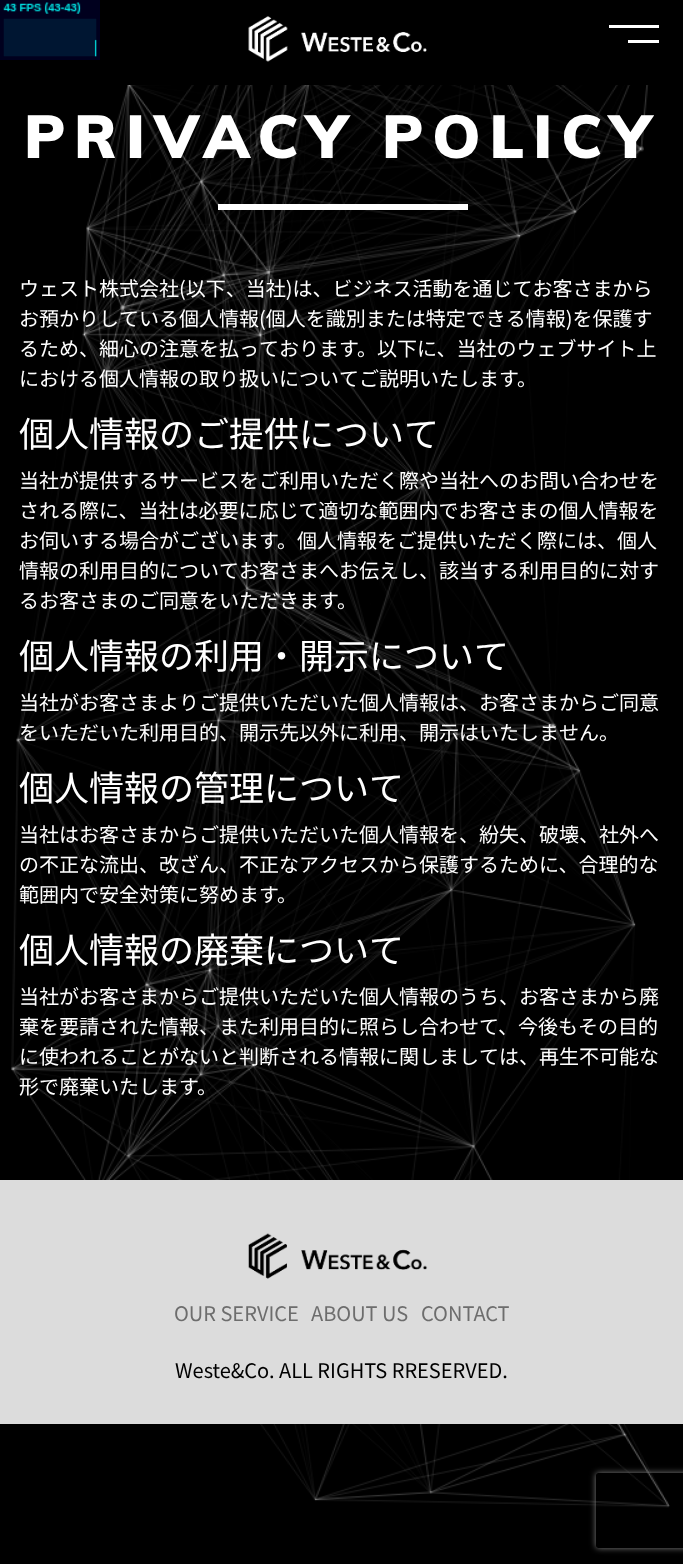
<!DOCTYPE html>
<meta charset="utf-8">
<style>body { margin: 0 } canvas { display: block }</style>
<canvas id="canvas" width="683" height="1564"></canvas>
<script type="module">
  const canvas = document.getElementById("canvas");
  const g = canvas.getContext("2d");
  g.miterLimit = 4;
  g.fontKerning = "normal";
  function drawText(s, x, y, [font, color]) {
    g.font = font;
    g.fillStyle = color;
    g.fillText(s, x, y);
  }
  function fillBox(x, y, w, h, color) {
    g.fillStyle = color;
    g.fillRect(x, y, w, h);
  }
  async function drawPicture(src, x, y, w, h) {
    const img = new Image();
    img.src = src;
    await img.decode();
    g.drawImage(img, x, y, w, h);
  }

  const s1 = ["900 60px Muli", "#FFFFFF"];
  const s2 = ["100 20px Noto Sans JP", "#FFFFFF"];
  const s3 = ["100 35px Noto Sans JP", "#FFFFFF"];
  const s4 = ["100 20px Noto Sans JP", "#6D6D6D"];
  const s5 = ["100 20px Noto Sans JP", "#000000"];

  fillBox(0, 0, 683, 1564, "#000000");
  await drawPicture("pic1.png", 0, 0, 100, 60);
  await drawPicture("pic2.png", 248, 16, 179, 46);
  fillBox(609, 25, 50, 3, "#FFFFFF");
  fillBox(628, 40, 31, 3, "#FFFFFF");
  await drawPicture("pic3.png", 11, 85, 659, 1423);
  g.letterSpacing = "9px";
  drawText("PRIVACY POLICY", 24, 158, s1);
  fillBox(218, 204, 250, 6, "#FFFFFF");
  g.letterSpacing = "0px";
  drawText("ウェスト株式会社(以下、当社)は、ビジネス活動を通じてお客さまから", 19, 296, s2);
  drawText("お預かりしている個⼈情報(個⼈を識別または特定できる情報)を保護す", 19, 326, s2);
  drawText("るため、細⼼の注意を払っております。以下に、当社のウェブサイト上", 19, 356, s2);
  drawText("における個⼈情報の取り扱いについてご説明いたします。", 19, 386, s2);
  drawText("個⼈情報のご提供について", 19, 447, s3);
  drawText("当社が提供するサービスをご利⽤いただく際や当社へのお問い合わせを", 19, 488, s2);
  drawText("される際に、当社は必要に応じて適切な範囲内でお客さまの個⼈情報を", 19, 518, s2);
  drawText("お伺いする場合がございます。個⼈情報をご提供いただく際には、個⼈", 19, 548, s2);
  drawText("情報の利⽤⽬的についてお客さまへお伝えし、該当する利⽤⽬的に対す", 19, 578, s2);
  drawText("るお客さまのご同意をいただきます。", 19, 608, s2);
  drawText("個⼈情報の利⽤・開⽰について", 19, 669, s3);
  drawText("当社がお客さまよりご提供いただいた個⼈情報は、お客さまからご同意", 19, 710, s2);
  drawText("をいただいた利⽤⽬的、開⽰先以外に利⽤、開⽰はいたしません。", 19, 740, s2);
  drawText("個⼈情報の管理について", 19, 801, s3);
  drawText("当社はお客さまからご提供いただいた個⼈情報を、紛失、破壊、社外へ", 19, 842, s2);
  drawText("の不正な流出、改ざん、不正なアクセスから保護するために、合理的な", 19, 872, s2);
  drawText("範囲内で安全対策に努めます。", 19, 902, s2);
  drawText("個⼈情報の廃棄について", 19, 963, s3);
  drawText("当社がお客さまからご提供いただいた個⼈情報のうち、お客さまから廃", 19, 1004, s2);
  drawText("棄を要請された情報、また利⽤⽬的に照らし合わせて、今後もその⽬的", 19, 1034, s2);
  drawText("に使われることがないと判断される情報に関しましては、再⽣不可能な", 19, 1064, s2);
  drawText("形で廃棄いたします。", 19, 1094, s2);
  fillBox(0, 1180, 683, 244, "#DCDCDC");
  await drawPicture("pic4.png", 248, 1233, 180, 46);
  drawText("OUR SERVICE", 174, 1321, s4);
  drawText("ABOUT US", 311, 1321, s4);
  drawText("CONTACT", 421, 1321, s4);
  drawText("Weste&Co. ALL RIGHTS RRESERVED.", 175, 1378, s5);
  g.save();
  g.beginPath();
  g.moveTo(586, 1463);
  g.lineTo(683, 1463);
  g.lineTo(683, 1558);
  g.lineTo(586, 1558);
  g.closePath();
  g.moveTo(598.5, 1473);
  g.lineTo(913.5, 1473);
  g.bezierCurveTo(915, 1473, 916, 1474, 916, 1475.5);
  g.lineTo(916, 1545.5);
  g.bezierCurveTo(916, 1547, 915, 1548, 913.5, 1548);
  g.lineTo(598.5, 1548);
  g.bezierCurveTo(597, 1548, 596, 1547, 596, 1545.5);
  g.lineTo(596, 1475.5);
  g.bezierCurveTo(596, 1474, 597, 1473, 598.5, 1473);
  g.closePath();
  g.clip("evenodd");
  g.fillStyle = "#808080";
  g.filter = "blur(3px)";
  g.beginPath();
  g.roundRect(596, 1473, 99, 75, 2.5);
  g.fill();
  g.filter = "none";
  g.restore();
</script>
